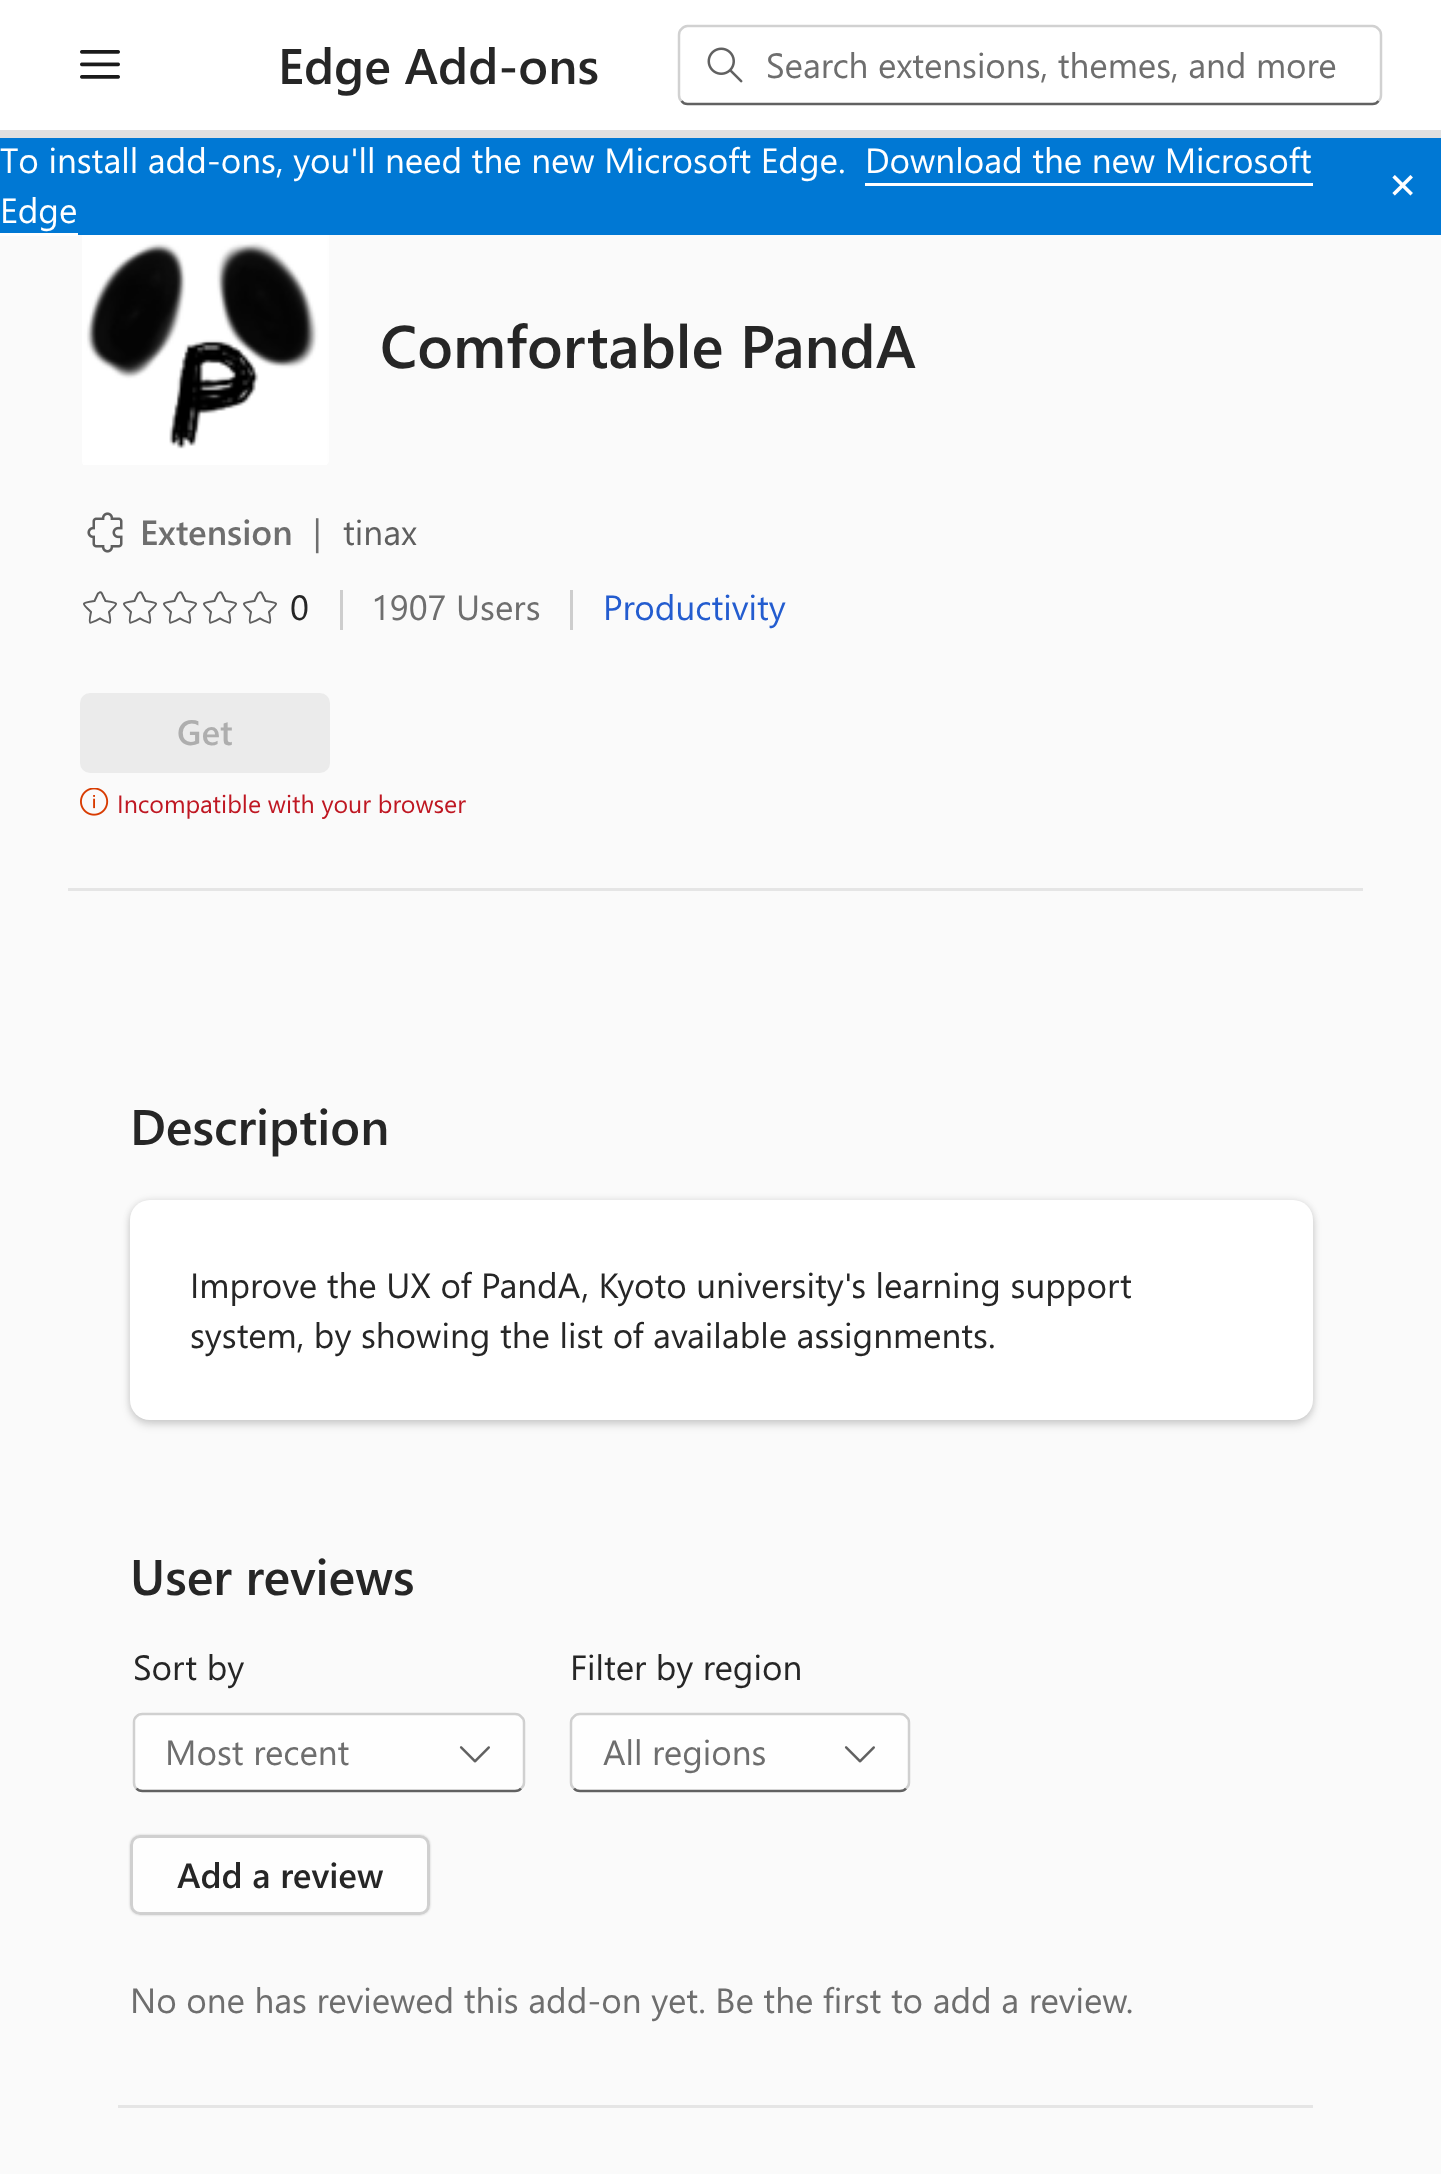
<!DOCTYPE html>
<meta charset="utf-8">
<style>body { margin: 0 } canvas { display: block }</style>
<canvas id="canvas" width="1441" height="2174"></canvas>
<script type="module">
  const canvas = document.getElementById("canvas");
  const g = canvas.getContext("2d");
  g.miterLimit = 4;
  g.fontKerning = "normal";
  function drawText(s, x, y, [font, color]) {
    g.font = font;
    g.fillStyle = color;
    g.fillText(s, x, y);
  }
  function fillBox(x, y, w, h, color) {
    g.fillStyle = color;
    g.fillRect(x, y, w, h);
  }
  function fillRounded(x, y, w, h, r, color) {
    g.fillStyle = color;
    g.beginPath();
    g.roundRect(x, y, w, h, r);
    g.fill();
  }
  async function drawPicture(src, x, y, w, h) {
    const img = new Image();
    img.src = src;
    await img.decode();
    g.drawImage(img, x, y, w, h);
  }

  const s1 = ["600 50px Segoe UI", "#262626"];
  const s2 = ["35px Segoe UI", "#6E6E6E"];
  const s3 = ["35px 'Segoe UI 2'", "#FFFFFF"];
  const s4 = ["35px DejaVu Sans", "#FFFFFF"];
  const s5 = ["600 60px Segoe UI", "#262626"];
  const s6 = ["600 35px Segoe UI", "#6E6E6E"];
  const s7 = ["35px Segoe UI", "#5F5F5F"];
  const s8 = ["35px Segoe UI", "#262626"];
  const s9 = ["35px Segoe UI", "#235CCF"];
  const s10 = ["600 35px Segoe UI", "#AEAEAE"];
  const s11 = ["25px Segoe UI", "#BF1722"];
  const s12 = ["600 35px Segoe UI", "#262626"];

  fillBox(0, 0, 1441, 2174, "#FAFAFA");
  fillBox(0, 0, 1441, 130, "#FFFFFF");
  fillBox(0, 130, 1441, 8, "#E0E0E0");
  await drawPicture("pic1.png", 80, 50, 40, 29);
  drawText("Edge Add-ons", 278, 84, s1);
  g.beginPath();
  g.moveTo(1378.5, 101);
  g.bezierCurveTo(1377, 103, 1375, 104, 1372.5, 104);
  g.lineTo(687.5, 104);
  g.bezierCurveTo(685, 104, 683, 103, 681.5, 101);
  g.strokeStyle = "#616161";
  g.lineWidth = 2.5;
  g.stroke();
  g.beginPath();
  g.moveTo(681.5, 101);
  g.bezierCurveTo(679.5, 99.5, 679, 97.5, 679, 95);
  g.lineTo(679, 35);
  g.bezierCurveTo(679, 32.5, 679.5, 30.5, 681.5, 29);
  g.bezierCurveTo(683, 27, 685, 26, 687.5, 26);
  g.lineTo(1372.5, 26);
  g.bezierCurveTo(1375, 26, 1377, 27, 1378.5, 29);
  g.bezierCurveTo(1380.5, 30.5, 1381, 32.5, 1381, 35);
  g.lineTo(1381, 95);
  g.bezierCurveTo(1381, 97.5, 1380.5, 99.5, 1378.5, 101);
  g.strokeStyle = "rgba(0, 0, 0, 0.18)";
  g.stroke();
  await drawPicture("pic2.png", 707, 47, 36, 36);
  drawText("Search extensions, themes, and more", 766, 78, s2);
  fillBox(0, 138, 1441, 97, "#0078D4");
  drawText("To install add-ons, you'll need the new Microsoft Edge.", 0, 173, s3);
  drawText("Download the new Microsoft", 865, 173, s3);
  fillBox(865, 183, 448, 3, "#FFFFFF");
  drawText("Edge", 0, 223, s3);
  fillBox(0, 233, 78, 3, "#FFFFFF");
  drawText("✕", 1388, 198, s4);
  await drawPicture("pic3.png", 82, 235, 247, 230);
  drawText("Comfortable PandA", 380, 368, s5);
  await drawPicture("pic4.png", 87, 512, 36, 41);
  drawText("Extension", 140, 545, s6);
  drawText("|", 313, 545, s2);
  drawText("tinax", 343, 545, s7);
  g.beginPath();
  g.moveTo(98, 593.5);
  g.lineTo(99.5, 592.5);
  g.bezierCurveTo(101.5, 591.5, 102.5, 594.5, 103, 596);
  g.lineTo(105.5, 601);
  g.bezierCurveTo(119, 603, 119, 602.5, 109, 612);
  g.bezierCurveTo(111.5, 625, 112, 625, 100, 618.5);
  g.bezierCurveTo(88, 625, 88.5, 625, 91, 612);
  g.bezierCurveTo(81, 602.5, 81, 603, 94.5, 601);
  g.closePath();
  g.strokeStyle = "#5F5F5F";
  g.lineWidth = 2;
  g.stroke();
  g.beginPath();
  g.moveTo(138, 593.5);
  g.lineTo(139.5, 592.5);
  g.bezierCurveTo(141.5, 591.5, 142.5, 594.5, 143, 596);
  g.lineTo(145.5, 601);
  g.bezierCurveTo(159, 603, 159, 602.5, 149, 612);
  g.bezierCurveTo(151.5, 625, 152, 625, 140, 618.5);
  g.bezierCurveTo(128, 625, 128.5, 625, 131, 612);
  g.bezierCurveTo(121, 602.5, 121, 603, 134.5, 601);
  g.closePath();
  g.stroke();
  g.beginPath();
  g.moveTo(178, 593.5);
  g.lineTo(179.5, 592.5);
  g.bezierCurveTo(181.5, 591.5, 182.5, 594.5, 183, 596);
  g.lineTo(185.5, 601);
  g.bezierCurveTo(199, 603, 199, 602.5, 189, 612);
  g.bezierCurveTo(191.5, 625, 192, 625, 180, 618.5);
  g.bezierCurveTo(168, 625, 168.5, 625, 171, 612);
  g.bezierCurveTo(161, 602.5, 161, 603, 174.5, 601);
  g.closePath();
  g.stroke();
  g.beginPath();
  g.moveTo(218, 593.5);
  g.lineTo(219.5, 592.5);
  g.bezierCurveTo(221.5, 591.5, 222.5, 594.5, 223, 596);
  g.lineTo(225.5, 601);
  g.bezierCurveTo(239, 603, 239, 602.5, 229, 612);
  g.bezierCurveTo(231.5, 625, 232, 625, 220, 618.5);
  g.bezierCurveTo(208, 625, 208.5, 625, 211, 612);
  g.bezierCurveTo(201, 602.5, 201, 603, 214.5, 601);
  g.closePath();
  g.stroke();
  g.beginPath();
  g.moveTo(258, 593.5);
  g.lineTo(259.5, 592.5);
  g.bezierCurveTo(261.5, 591.5, 262.5, 594.5, 263, 596);
  g.lineTo(265.5, 601);
  g.bezierCurveTo(279, 603, 279, 602.5, 269, 612);
  g.bezierCurveTo(271.5, 625, 272, 625, 260, 618.5);
  g.bezierCurveTo(248, 625, 248.5, 625, 251, 612);
  g.bezierCurveTo(241, 602.5, 241, 603, 254.5, 601);
  g.closePath();
  g.stroke();
  drawText("0", 290, 620, s8);
  fillBox(340, 590, 3, 40, "#CDCDCD");
  drawText("1907 Users", 371, 620, s2);
  fillBox(570, 590, 3, 40, "#CDCDCD");
  drawText("Productivity", 603, 620, s9);
  fillRounded(80, 693, 250, 80, 10, "#EBEBEB");
  drawText("Get", 177, 745, s10);
  await drawPicture("pic5.png", 80, 788, 29, 28);
  drawText("Incompatible with your browser", 117, 813, s11);
  fillBox(68, 888, 1295, 3, "#E5E5E5");
  drawText("Description", 130, 1145, s1);
  g.fillStyle = "rgba(0, 0, 0, 0.11)";
  g.filter = "blur(3.5px)";
  g.beginPath();
  g.roundRect(130, 1200, 1183, 220, 20);
  g.fill();
  g.filter = "none";
  g.fillStyle = "rgba(0, 0, 0, 0.14)";
  g.filter = "blur(4.5px)";
  g.beginPath();
  g.roundRect(130, 1205, 1183, 220, 20);
  g.fill();
  g.filter = "none";
  fillRounded(130, 1200, 1183, 220, 20, "#FFFFFF");
  drawText("Improve the UX of PandA, Kyoto university's learning support", 190, 1298, s8);
  drawText("system, by showing the list of available assignments.", 190, 1348, s8);
  drawText("User reviews", 130, 1595, s1);
  drawText("Sort by", 133, 1680, s8);
  fillRounded(133, 1713, 392, 80, 10, "#FEFEFE");
  g.beginPath();
  g.moveTo(521, 1788.5);
  g.bezierCurveTo(519.5, 1790.5, 517.5, 1791, 515, 1791);
  g.lineTo(142.5, 1791);
  g.bezierCurveTo(140, 1791, 138, 1790.5, 136.5, 1788.5);
  g.strokeStyle = "#616161";
  g.lineWidth = 2.5;
  g.stroke();
  g.beginPath();
  g.moveTo(136.5, 1788.5);
  g.bezierCurveTo(134.5, 1787, 134, 1785, 134, 1782.5);
  g.lineTo(134, 1722.5);
  g.bezierCurveTo(134, 1720, 134.5, 1718, 136.5, 1716.5);
  g.bezierCurveTo(138, 1714.5, 140, 1714, 142.5, 1714);
  g.lineTo(515, 1714);
  g.bezierCurveTo(517.5, 1714, 519.5, 1714.5, 521, 1716.5);
  g.bezierCurveTo(523, 1718, 524, 1720, 524, 1722.5);
  g.lineTo(524, 1782.5);
  g.bezierCurveTo(524, 1785, 523, 1787, 521, 1788.5);
  g.strokeStyle = "rgba(0, 0, 0, 0.18)";
  g.stroke();
  drawText("Most recent", 165, 1765, s2);
  await drawPicture("pic6.png", 459, 1746, 31, 17);
  drawText("Filter by region", 570, 1680, s8);
  fillRounded(570, 1713, 340, 80, 10, "#FEFEFE");
  g.beginPath();
  g.moveTo(906, 1788.5);
  g.bezierCurveTo(904.5, 1790.5, 902.5, 1791, 900, 1791);
  g.lineTo(580, 1791);
  g.bezierCurveTo(577.5, 1791, 575.5, 1790.5, 574, 1788.5);
  g.strokeStyle = "#616161";
  g.stroke();
  g.beginPath();
  g.moveTo(574, 1788.5);
  g.bezierCurveTo(572, 1787, 571, 1785, 571, 1782.5);
  g.lineTo(571, 1722.5);
  g.bezierCurveTo(571, 1720, 572, 1718, 574, 1716.5);
  g.bezierCurveTo(575.5, 1714.5, 577.5, 1714, 580, 1714);
  g.lineTo(900, 1714);
  g.bezierCurveTo(902.5, 1714, 904.5, 1714.5, 906, 1716.5);
  g.bezierCurveTo(908, 1718, 909, 1720, 909, 1722.5);
  g.lineTo(909, 1782.5);
  g.bezierCurveTo(909, 1785, 908, 1787, 906, 1788.5);
  g.strokeStyle = "rgba(0, 0, 0, 0.18)";
  g.stroke();
  drawText("All regions", 603, 1765, s2);
  await drawPicture("pic6.png", 844, 1746, 31, 17);
  g.save();
  g.beginPath();
  g.moveTo(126, 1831);
  g.lineTo(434, 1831);
  g.lineTo(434, 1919);
  g.lineTo(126, 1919);
  g.closePath();
  g.moveTo(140, 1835);
  g.lineTo(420, 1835);
  g.bezierCurveTo(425.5, 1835, 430, 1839.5, 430, 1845);
  g.lineTo(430, 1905);
  g.bezierCurveTo(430, 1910.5, 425.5, 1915, 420, 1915);
  g.lineTo(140, 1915);
  g.bezierCurveTo(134.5, 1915, 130, 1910.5, 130, 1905);
  g.lineTo(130, 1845);
  g.bezierCurveTo(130, 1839.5, 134.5, 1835, 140, 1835);
  g.closePath();
  g.clip("evenodd");
  g.fillStyle = "rgba(0, 0, 0, 0.18)";
  g.filter = "blur(1px)";
  g.beginPath();
  g.roundRect(130, 1835, 300, 80, 10);
  g.fill();
  g.filter = "none";
  g.restore();
  fillRounded(130, 1835, 300, 80, 10, "rgba(255, 255, 255, 0.7)");
  g.beginPath();
  g.roundRect(131.5, 1836.5, 297, 77, 8.5);
  g.lineWidth = 3;
  g.stroke();
  drawText("Add a review", 177, 1888, s12);
  drawText("No one has reviewed this add-on yet. Be the first to add a review.", 130, 2013, s2);
  fillBox(118, 2105, 1195, 3, "#E5E5E5");
</script>
